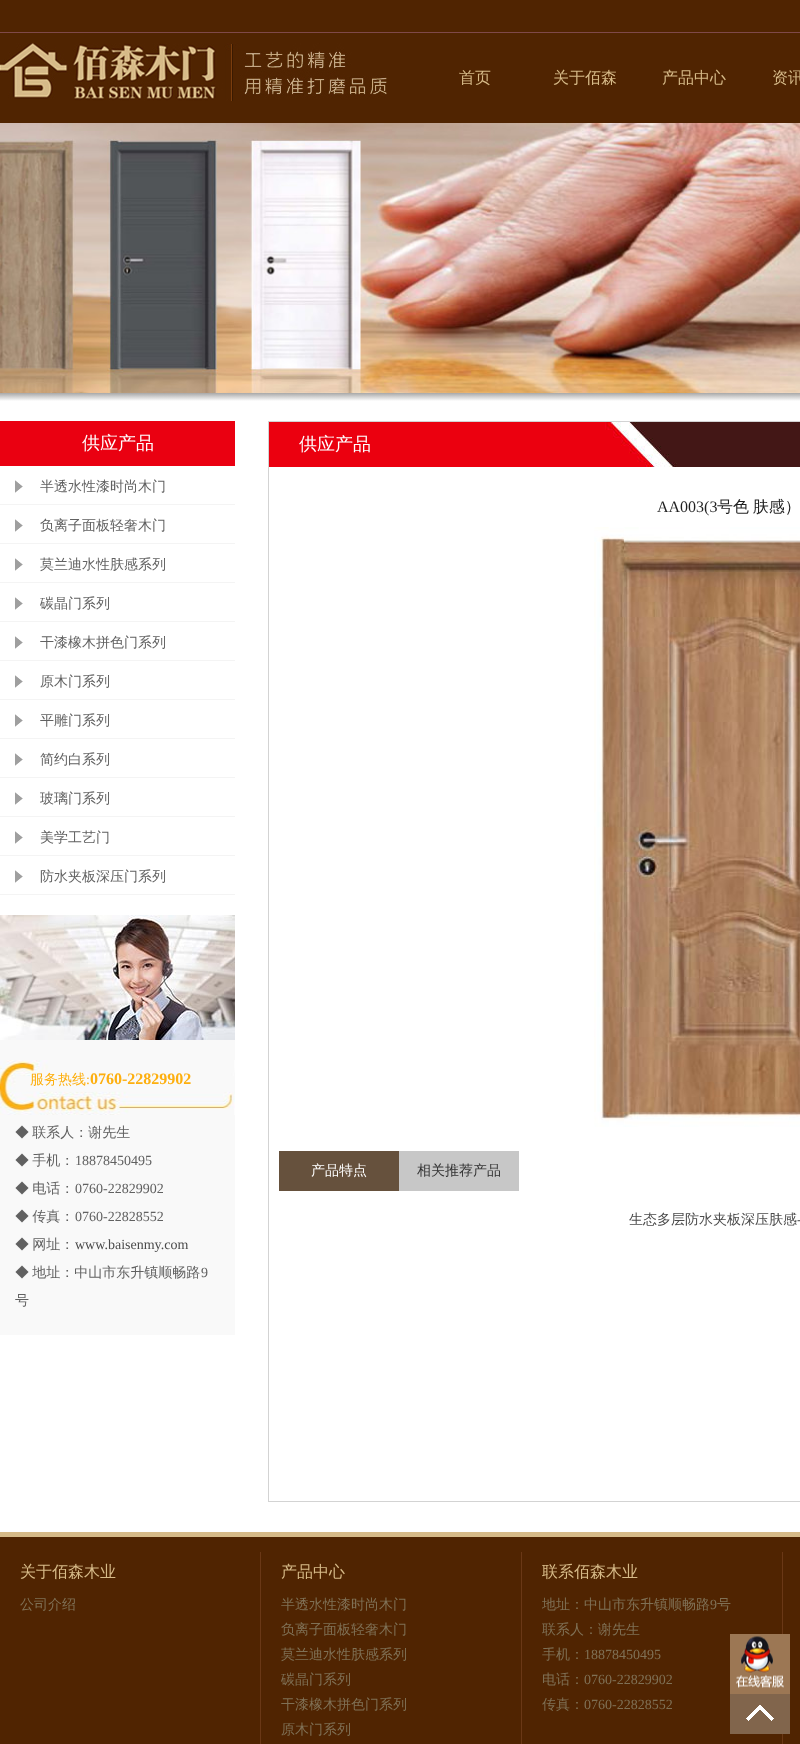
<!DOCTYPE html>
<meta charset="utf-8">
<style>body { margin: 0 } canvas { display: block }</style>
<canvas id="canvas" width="800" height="1744"></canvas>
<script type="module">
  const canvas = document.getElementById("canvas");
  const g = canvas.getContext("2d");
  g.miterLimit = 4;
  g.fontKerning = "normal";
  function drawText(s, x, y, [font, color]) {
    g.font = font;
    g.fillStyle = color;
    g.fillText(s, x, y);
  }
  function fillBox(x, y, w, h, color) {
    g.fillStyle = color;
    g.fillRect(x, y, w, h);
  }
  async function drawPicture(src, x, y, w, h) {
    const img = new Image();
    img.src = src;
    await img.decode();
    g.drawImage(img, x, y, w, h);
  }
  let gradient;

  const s1 = ["500 16px WenQuanYi Zen Hei", "#D6BA88"];
  const s2 = ["500 18px WenQuanYi Zen Hei", "#FFFFFF"];
  const s3 = ["500 14px WenQuanYi Zen Hei", "#616161"];
  const s4 = ["500 14px WenQuanYi Zen Hei", "#FDAF0F"];
  const s5 = ["14px Liberation Serif", "#FDAF0F"];
  const s6 = ["bold 16px Liberation Serif", "#FDAF0F"];
  const s7 = ["14px Liberation Serif", "#616161"];
  const s8 = ["14px Liberation Serif", "#4A4A4A"];
  const s9 = ["16px Liberation Serif", "#1F1F1F"];
  const s10 = ["500 16px WenQuanYi Zen Hei", "#1F1F1F"];
  const s11 = ["500 14px WenQuanYi Zen Hei", "#FFFFFF"];
  const s12 = ["500 14px WenQuanYi Zen Hei", "#333333"];
  const s13 = ["500 14px WenQuanYi Zen Hei", "#4A4A4A"];
  const s14 = ["500 14px WenQuanYi Zen Hei", "#7F7055"];
  const s15 = ["14px Liberation Serif", "#7F7055"];

  fillBox(0, 0, 800, 1744, "#FFFFFF");
  fillBox(0, 0, 800, 32, "#502401");
  fillBox(0, 32, 800, 1, "#7F4949");
  fillBox(0, 33, 800, 90, "#502401");
  await drawPicture("pic1.png", 0, 43, 387, 58);
  drawText("首页", 459, 83, s1);
  drawText("关于佰森", 553, 83, s1);
  drawText("产品中心", 662, 83, s1);
  drawText("资讯", 772, 83, s1);
  await drawPicture("pic2.png", 0, 123, 800, 270);
  gradient = g.createLinearGradient(400, 393, 400, 401);
  gradient.addColorStop(0, "#A8A8A8");
  gradient.addColorStop(1, "#FFFFFF");
  g.fillStyle = gradient;
  g.fillRect(0, 393, 800, 8);
  fillBox(0, 421, 235, 45, "#EA0011");
  drawText("供应产品", 82, 449, s2);
  await drawPicture("pic3.png", 15, 480, 8, 13);
  fillBox(0, 504, 235, 1, "#F4F4F4");
  drawText("半透水性漆时尚木门", 40, 491, s3);
  await drawPicture("pic3.png", 15, 519, 8, 13);
  fillBox(0, 543, 235, 1, "#F4F4F4");
  drawText("负离子面板轻奢木门", 40, 530, s3);
  await drawPicture("pic3.png", 15, 558, 8, 13);
  fillBox(0, 582, 235, 1, "#F4F4F4");
  drawText("莫兰迪水性肤感系列", 40, 569, s3);
  await drawPicture("pic3.png", 15, 597, 8, 13);
  fillBox(0, 621, 235, 1, "#F4F4F4");
  drawText("碳晶门系列", 40, 608, s3);
  await drawPicture("pic3.png", 15, 636, 8, 13);
  fillBox(0, 660, 235, 1, "#F4F4F4");
  drawText("干漆橡木拼色门系列", 40, 647, s3);
  await drawPicture("pic3.png", 15, 675, 8, 13);
  fillBox(0, 699, 235, 1, "#F4F4F4");
  drawText("原木门系列", 40, 686, s3);
  await drawPicture("pic3.png", 15, 714, 8, 13);
  fillBox(0, 738, 235, 1, "#F4F4F4");
  drawText("平雕门系列", 40, 725, s3);
  await drawPicture("pic3.png", 15, 753, 8, 13);
  fillBox(0, 777, 235, 1, "#F4F4F4");
  drawText("简约白系列", 40, 764, s3);
  await drawPicture("pic3.png", 15, 792, 8, 13);
  fillBox(0, 816, 235, 1, "#F4F4F4");
  drawText("玻璃门系列", 40, 803, s3);
  await drawPicture("pic3.png", 15, 831, 8, 13);
  fillBox(0, 855, 235, 1, "#F4F4F4");
  drawText("美学工艺门", 40, 842, s3);
  await drawPicture("pic3.png", 15, 870, 8, 13);
  fillBox(0, 894, 235, 1, "#F4F4F4");
  drawText("防水夹板深压门系列", 40, 881, s3);
  await drawPicture("pic4.png", 0, 915, 235, 125);
  fillBox(0, 1040, 235, 295, "#F9F9F9");
  await drawPicture("pic5.png", 0, 1060, 235, 55);
  drawText("服务热线", 30, 1084, s4);
  drawText(":", 86, 1084, s5);
  drawText("0760-22829902", 90, 1084, s6);
  g.wordSpacing = "-1px";
  drawText("◆ 联系人：谢先生", 15, 1137, s3);
  drawText("◆ 手机：", 15, 1165, s3);
  g.wordSpacing = "0px";
  drawText("18878450495", 75, 1165, s7);
  g.wordSpacing = "-1px";
  drawText("◆ 电话：", 15, 1193, s3);
  g.wordSpacing = "0px";
  drawText("0760-22829902", 75, 1193, s7);
  g.wordSpacing = "-1px";
  drawText("◆ 传真：", 15, 1221, s3);
  g.wordSpacing = "0px";
  drawText("0760-22828552", 75, 1221, s7);
  g.wordSpacing = "-1px";
  drawText("◆ 网址：", 15, 1249, s3);
  g.wordSpacing = "0px";
  drawText("www.baisenmy.com", 75, 1249, s8);
  g.wordSpacing = "-1px";
  drawText("◆ 地址：中山市东升镇顺畅路", 15, 1277, s3);
  g.wordSpacing = "0px";
  drawText("9", 201, 1277, s7);
  drawText("号", 15, 1305, s3);
  g.strokeStyle = "#D3D3D3";
  g.strokeRect(268.5, 421.5, 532, 1080);
  await drawPicture("pic6.png", 269, 422, 531, 45);
  drawText("供应产品", 299, 450, s2);
  drawText("AA003(3", 657, 512, s9);
  g.wordSpacing = "-1px";
  drawText("号色 肤感）", 717, 512, s10);
  await drawPicture("pic7.png", 594, 527, 206, 600);
  fillBox(279, 1151, 120, 40, "#66513D");
  g.wordSpacing = "0px";
  drawText("产品特点", 311, 1175, s11);
  fillBox(399, 1151, 120, 40, "#C7C7C7");
  drawText("相关推荐产品", 417, 1175, s12);
  drawText("生态多层防水夹板深压肤感", 629, 1224, s13);
  drawText("-", 797, 1224, s8);
  fillBox(0, 1537, 800, 207, "#502401");
  fillBox(0, 1532, 800, 5, "#D6BA88");
  fillBox(260, 1552, 1, 192, "#6A3816");
  drawText("关于佰森木业", 20, 1577, s1);
  drawText("公司介绍", 20, 1609, s14);
  fillBox(521, 1552, 1, 192, "#6A3816");
  drawText("产品中心", 281, 1577, s1);
  drawText("半透水性漆时尚木门", 281, 1609, s14);
  drawText("负离子面板轻奢木门", 281, 1634, s14);
  drawText("莫兰迪水性肤感系列", 281, 1659, s14);
  drawText("碳晶门系列", 281, 1684, s14);
  drawText("干漆橡木拼色门系列", 281, 1709, s14);
  drawText("原木门系列", 281, 1734, s14);
  fillBox(782, 1552, 1, 192, "#6A3816");
  drawText("联系佰森木业", 542, 1577, s1);
  drawText("地址：中山市东升镇顺畅路", 542, 1609, s14);
  drawText("9", 710, 1609, s15);
  drawText("号", 717, 1609, s14);
  drawText("联系人：谢先生", 542, 1634, s14);
  drawText("手机：", 542, 1659, s14);
  drawText("18878450495", 584, 1659, s15);
  drawText("电话：", 542, 1684, s14);
  drawText("0760-22829902", 584, 1684, s15);
  drawText("传真：", 542, 1709, s14);
  drawText("0760-22828552", 584, 1709, s15);
  fillBox(730, 1634, 60, 60, "#9C7754");
  await drawPicture("pic8.png", 736, 1636, 48, 52);
  fillBox(730, 1694, 60, 40, "#81654C");
  await drawPicture("pic9.png", 746, 1705, 28, 16);
</script>
